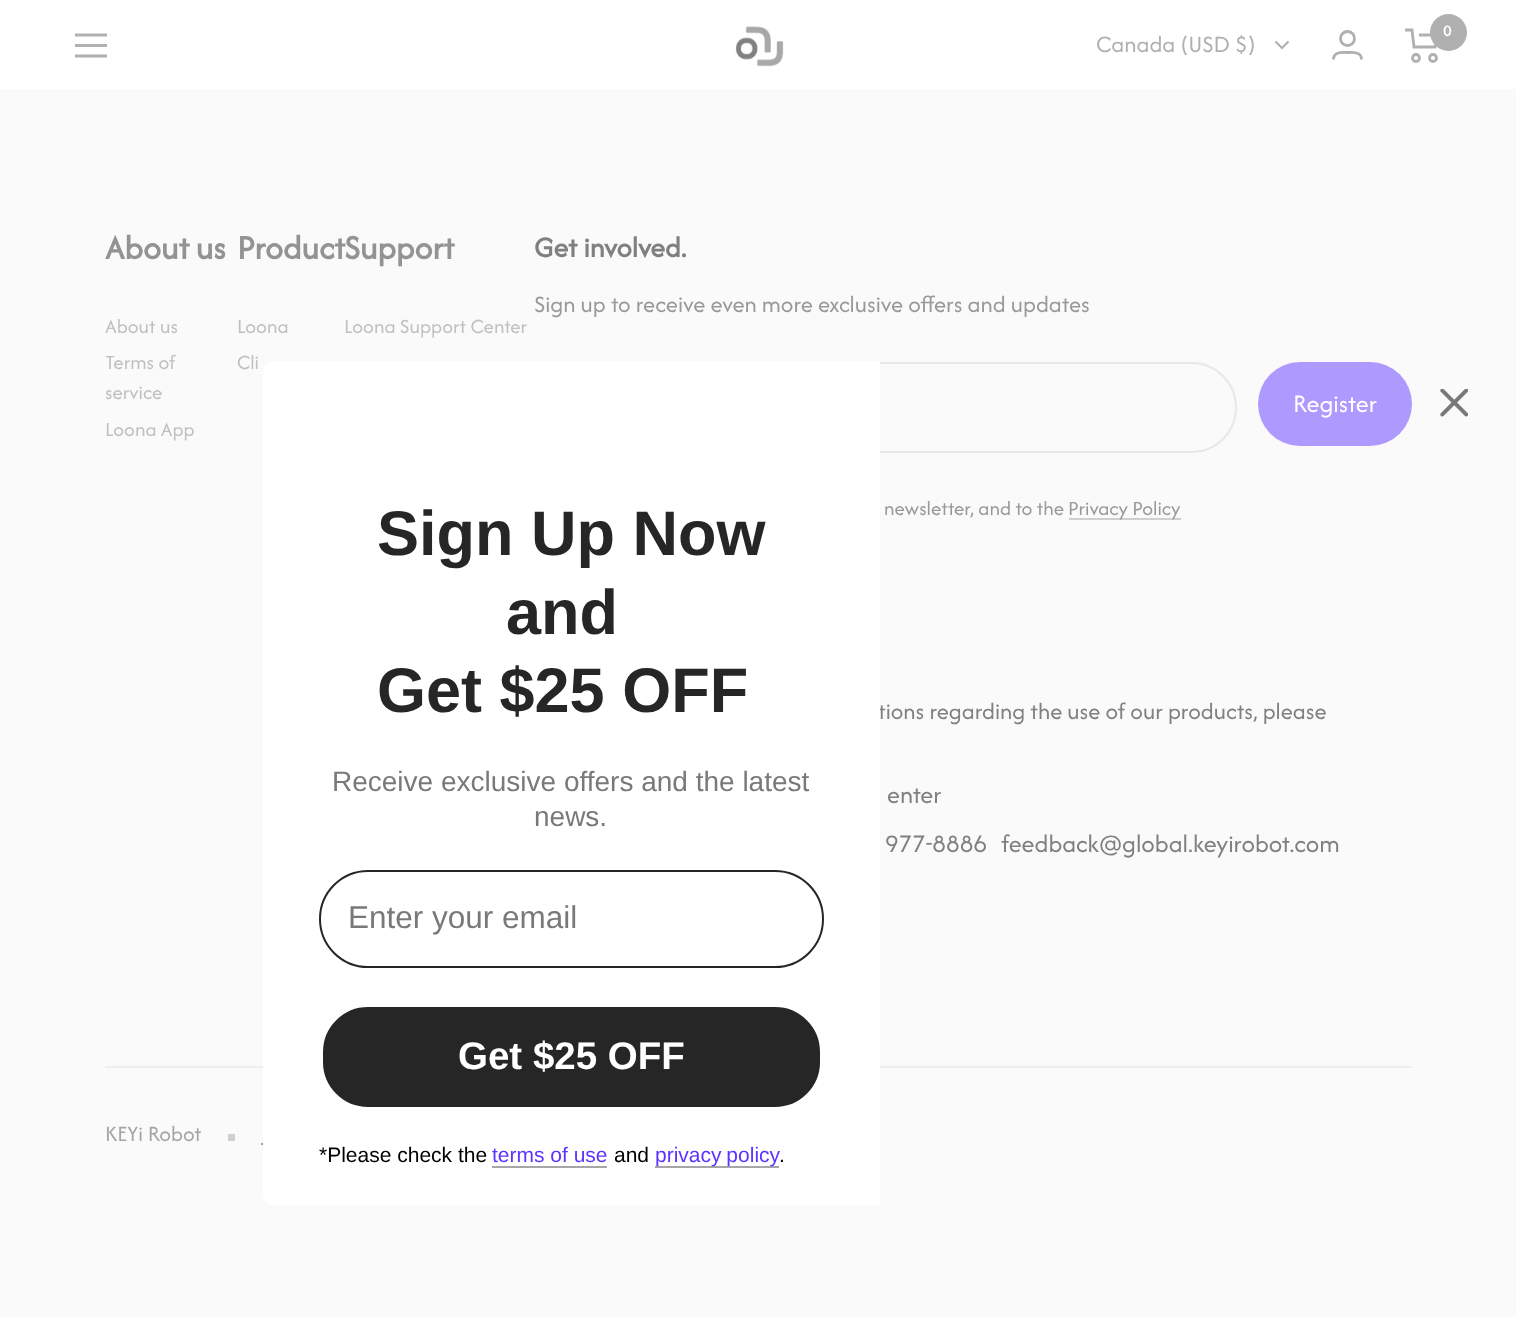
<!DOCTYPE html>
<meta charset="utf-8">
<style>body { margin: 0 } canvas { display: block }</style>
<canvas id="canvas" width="1516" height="1317"></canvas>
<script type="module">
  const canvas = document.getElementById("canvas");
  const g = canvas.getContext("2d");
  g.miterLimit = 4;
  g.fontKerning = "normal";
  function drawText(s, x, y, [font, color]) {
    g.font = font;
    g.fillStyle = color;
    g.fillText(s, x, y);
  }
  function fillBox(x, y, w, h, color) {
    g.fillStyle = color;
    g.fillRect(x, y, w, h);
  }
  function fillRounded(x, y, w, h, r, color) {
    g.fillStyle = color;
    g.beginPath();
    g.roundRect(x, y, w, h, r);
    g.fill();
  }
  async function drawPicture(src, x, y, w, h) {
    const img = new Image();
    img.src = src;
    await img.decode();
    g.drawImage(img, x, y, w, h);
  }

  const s1 = ["bold 16px Afacad", "#FFFFFF"];
  const s2 = ["24.5px Afacad", "#B0B0B0"];
  const s3 = ["bold 35px Afacad", "#939393"];
  const s4 = ["21px Afacad", "#C0C0C0"];
  const s5 = ["bold 29.75px Afacad", "#808080"];
  const s6 = ["24.5px Afacad", "#999999"];
  const s7 = ["26.25px Afacad", "#FFFFFF"];
  const s8 = ["21px Afacad", "#999999"];
  const s9 = ["24.5px Afacad", "#808080"];
  const s10 = ["26.25px Afacad", "#808080"];
  const s11 = ["22.75px Afacad", "#A5A5A5"];
  const s12 = ["bold 63px Liberation Sans", "#262626"];
  const s13 = ["28px Liberation Sans", "#797979"];
  const s14 = ["31.5px Liberation Sans", "#797979"];
  const s15 = ["bold 38.5px Liberation Sans", "#FFFFFF"];
  const s16 = ["21px Liberation Sans", "#000000"];
  const s17 = ["21px Liberation Sans", "#5D34FF"];

  fillBox(0, 0, 1516, 1317, "#FAFAFA");
  fillBox(0, 0, 1516, 89, "#FFFFFF");
  g.beginPath();
  g.moveTo(75, 35);
  g.lineTo(107, 35);
  g.moveTo(75, 56);
  g.lineTo(107, 56);
  g.closePath();
  g.moveTo(75, 45.5);
  g.lineTo(107, 45.5);
  g.closePath();
  g.strokeStyle = "#B0B0B0";
  g.lineWidth = 2.8;
  g.stroke();
  await drawPicture("pic1.png", 735, 26, 49, 41);
  g.beginPath();
  g.arc(1347.5, 38.5, 7, 0, Math.PI * 2);
  g.stroke();
  g.beginPath();
  g.moveTo(1333.5, 59.5);
  g.bezierCurveTo(1333.5, 51.5, 1342, 52.5, 1347.5, 52.5);
  g.bezierCurveTo(1353, 52.5, 1361.5, 51.5, 1361.5, 59.5);
  g.stroke();
  g.beginPath();
  g.moveTo(1405, 30);
  g.lineTo(1412, 30);
  g.lineTo(1414, 47);
  g.lineTo(1435, 47);
  g.lineTo(1438.5, 35);
  g.lineTo(1419, 35);
  g.stroke();
  g.beginPath();
  g.arc(1416, 58, 3.5, 0, Math.PI * 2);
  g.stroke();
  g.beginPath();
  g.arc(1433, 58, 3.5, 0, Math.PI * 2);
  g.stroke();
  g.fillStyle = "#B0B0B0";
  g.beginPath();
  g.arc(1448.5, 32.5, 18.5, 0, Math.PI * 2);
  g.fill();
  drawText("0", 1443, 36, s1);
  drawText("Canada (USD $)", 1096, 52, s2);
  g.beginPath();
  g.moveTo(1275.5, 41.5);
  g.lineTo(1282, 48);
  g.lineTo(1288.5, 41.5);
  g.lineWidth = 2.1;
  g.stroke();
  g.wordSpacing = "-1px";
  drawText("About us", 105, 259, s3);
  g.wordSpacing = "0px";
  drawText("About us", 105, 333, s4);
  drawText("Terms of", 105, 369, s4);
  drawText("service", 105, 399, s4);
  drawText("Loona App", 105, 436, s4);
  drawText("Product", 237, 259, s3);
  drawText("Loona", 237, 333, s4);
  drawText("Cli", 237, 369, s4);
  drawText("Support", 344, 259, s3);
  drawText("Loona Support Center", 344, 333, s4);
  drawText("Get involved.", 534, 257, s5);
  drawText("Sign up to receive even more exclusive offers and updates", 534, 312, s6);
  g.beginPath();
  g.roundRect(535, 363, 701, 89, 44.5);
  g.strokeStyle = "#E8E8E8";
  g.lineWidth = 2;
  g.stroke();
  fillRounded(1258, 362, 154, 84, 42, "#AE9AFF");
  drawText("Register", 1293, 412, s7);
  drawText("newsletter, and to the", 884, 515, s8);
  fillBox(1069, 518, 112, 2, "#CFCFCF");
  drawText("Privacy Policy", 1068, 515, s8);
  drawText("tions regarding the use of our products, please", 878, 719, s9);
  drawText("enter", 887, 803, s10);
  drawText("977-8886", 885, 852, s10);
  drawText("feedback@global.keyirobot.com", 1001, 852, s10);
  fillBox(105, 1066, 1307, 2, "#EEEEEE");
  drawText("KEYi Robot", 105, 1141, s11);
  fillBox(228, 1134, 7, 7, "#D0D0D0");
  fillBox(261, 1143, 2, 2, "#A5A5A5");
  await drawPicture("pic2.png", 1440, 389, 28, 28);
  g.fillStyle = "#FFFFFF";
  g.beginPath();
  g.roundRect(263, 361, 617, 845, [12, 0, 0, 12]);
  g.fill();
  drawText("Sign Up Now", 377, 555, s12);
  drawText("and", 506, 634, s12);
  drawText("Get $25 OFF", 377, 712, s12);
  drawText("Receive exclusive offers and the latest", 332, 791, s13);
  drawText("news.", 534, 826, s13);
  g.beginPath();
  g.roundRect(320, 871, 503, 96, 48);
  g.strokeStyle = "#262626";
  g.stroke();
  drawText("Enter your email", 348, 928, s14);
  g.fillStyle = "#262626";
  g.beginPath();
  g.roundRect(321, 1005, 501, 104, 47);
  g.fill();
  g.strokeStyle = "#FFFFFF";
  g.lineWidth = 4;
  g.stroke();
  drawText("Get $25 OFF", 458, 1069, s15);
  drawText("*Please check the", 319, 1162, s16);
  drawText("terms of use", 492, 1162, s17);
  fillBox(492, 1166, 115, 2, "#A6A6A6");
  drawText("and", 614, 1162, s16);
  fillBox(655, 1166, 124, 2, "#A6A6A6");
  g.wordSpacing = "-1px";
  drawText("privacy policy", 655, 1162, s17);
  g.wordSpacing = "0px";
  drawText(".", 779, 1162, s16);
</script>
